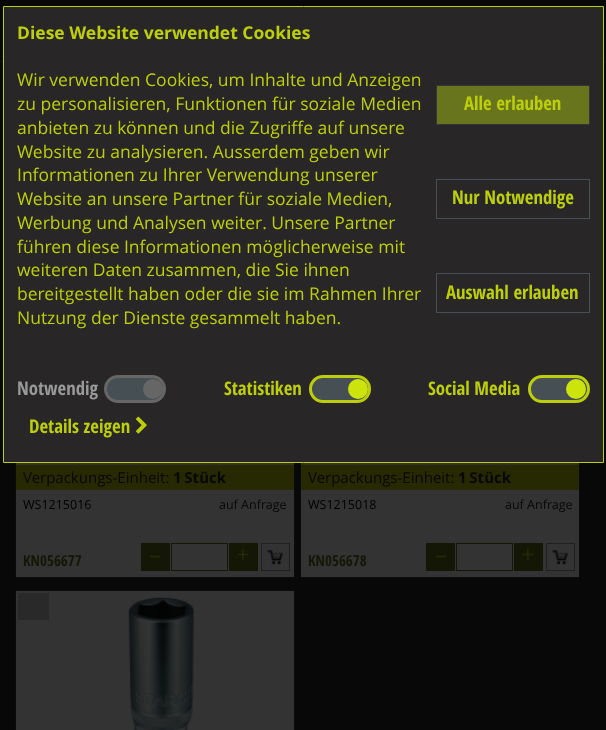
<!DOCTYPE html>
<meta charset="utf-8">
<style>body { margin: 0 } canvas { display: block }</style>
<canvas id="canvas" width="606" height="730"></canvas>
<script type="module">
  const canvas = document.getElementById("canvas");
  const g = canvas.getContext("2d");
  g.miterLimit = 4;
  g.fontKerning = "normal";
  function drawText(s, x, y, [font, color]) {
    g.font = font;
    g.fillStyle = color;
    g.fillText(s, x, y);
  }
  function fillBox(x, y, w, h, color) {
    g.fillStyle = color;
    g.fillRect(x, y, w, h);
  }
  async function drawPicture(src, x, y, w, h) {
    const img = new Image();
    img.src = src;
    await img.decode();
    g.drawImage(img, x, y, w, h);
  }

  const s1 = ["bold 17.5px Open Sans", "#BCCF0A"];
  const s2 = ["17.5px Open Sans", "#BCCF0A"];
  const s3 = ["bold 18.75px Open Sans Condensed", "#BCCF0A"];
  const s4 = ["bold 18.75px Open Sans Condensed", "#999999"];
  const s5 = ["15px Open Sans", "#080808"];
  const s6 = ["bold 15px Open Sans", "#080808"];
  const s7 = ["12.5px Open Sans", "#000000"];
  const s8 = ["12.5px Open Sans", "#080808"];
  const s9 = ["bold 15px Open Sans Condensed", "#151706"];
  const s10 = ["24px Open Sans", "#262902"];

  fillBox(0, 0, 606, 730, "#080808");
  fillBox(0, 61, 606, 1, "#0E1011");
  fillBox(16, 463, 278, 114, "#333333");
  g.strokeStyle = "#0A0B0B";
  g.strokeRect(15.5, 221.5, 279, 356);
  fillBox(301, 463, 278, 114, "#333333");
  g.strokeRect(300.5, 221.5, 279, 356);
  g.fillStyle = "#282627";
  g.beginPath();
  g.rect(3.5, 6.5, 600, 456);
  g.fill();
  g.strokeStyle = "#BCCF0A";
  g.stroke();
  drawText("Diese Website verwendet Cookies", 17, 39, s1);
  drawText("Wir verwenden Cookies, um Inhalte und Anzeigen", 17, 86, s2);
  drawText("zu personalisieren, Funktionen für soziale Medien", 17, 110, s2);
  drawText("anbieten zu können und die Zugriffe auf unsere", 17, 134, s2);
  drawText("Website zu analysieren. Ausserdem geben wir", 17, 158, s2);
  drawText("Informationen zu Ihrer Verwendung unserer", 17, 181, s2);
  drawText("Website an unsere Partner für soziale Medien,", 17, 205, s2);
  drawText("Werbung und Analysen weiter. Unsere Partner", 17, 229, s2);
  drawText("führen diese Informationen möglicherweise mit", 17, 253, s2);
  drawText("weiteren Daten zusammen, die Sie ihnen", 17, 276, s2);
  drawText("bereitgestellt haben oder die sie im Rahmen Ihrer", 17, 300, s2);
  drawText("Nutzung der Dienste gesammelt haben.", 17, 324, s2);
  g.fillStyle = "#69751C";
  g.beginPath();
  g.rect(436.5, 85.5, 153, 39);
  g.fill();
  g.strokeStyle = "#313639";
  g.stroke();
  drawText("Alle erlauben", 464, 110, s3);
  g.strokeStyle = "#454F54";
  g.strokeRect(436.5, 179.5, 153, 39);
  drawText("Nur Notwendige", 452, 204, s3);
  g.strokeRect(436.5, 273.5, 153, 39);
  drawText("Auswahl erlauben", 446, 299, s3);
  drawText("Notwendig", 17, 395, s4);
  g.fillStyle = "#454F54";
  g.beginPath();
  g.roundRect(105.5, 376.5, 59, 25, 12.5);
  g.fill();
  g.strokeStyle = "#666666";
  g.lineWidth = 3;
  g.stroke();
  g.fillStyle = "#666666";
  g.beginPath();
  g.arc(153, 389, 10, 0, Math.PI * 2);
  g.fill();
  drawText("Statistiken", 224, 395, s3);
  g.fillStyle = "#454F54";
  g.beginPath();
  g.roundRect(310.5, 376.5, 59, 25, 12.5);
  g.fill();
  g.strokeStyle = "#BCCF0A";
  g.stroke();
  g.fillStyle = "#CDE40C";
  g.beginPath();
  g.arc(358, 389, 10, 0, Math.PI * 2);
  g.fill();
  drawText("Social Media", 428, 395, s3);
  g.fillStyle = "#454F54";
  g.beginPath();
  g.roundRect(529.5, 376.5, 59, 25, 12.5);
  g.fill();
  g.stroke();
  g.fillStyle = "#CDE40C";
  g.beginPath();
  g.arc(576, 389, 10, 0, Math.PI * 2);
  g.fill();
  drawText("Details zeigen", 29, 433, s3);
  await drawPicture("pic1.png", 136, 416, 11, 18);
  fillBox(16, 464, 278, 1, "#303030");
  fillBox(16, 494, 278, 1, "#303030");
  fillBox(16, 465, 278, 25, "#262902");
  drawText("Verpackungs-Einheit:", 23, 483, s5);
  drawText("1 Stück", 173, 483, s6);
  drawText("WS1215016", 23, 509, s7);
  drawText("auf Anfrage", 219, 509, s8);
  drawText("KN056677", 23, 566, s9);
  fillBox(141, 543, 29, 28, "#151706");
  drawText("–", 149, 563, s10);
  g.strokeStyle = "#151706";
  g.lineWidth = 1;
  g.strokeRect(171.5, 543.5, 56, 27);
  fillBox(229, 543, 29, 28, "#151706");
  drawText("+", 236, 563, s10);
  await drawPicture("pic2.png", 267, 550, 16, 15);
  g.strokeStyle = "#202020";
  g.strokeRect(261.5, 543.5, 28, 27);
  fillBox(301, 464, 278, 1, "#303030");
  fillBox(301, 494, 278, 1, "#303030");
  fillBox(301, 465, 278, 25, "#262902");
  drawText("Verpackungs-Einheit:", 308, 483, s5);
  drawText("1 Stück", 458, 483, s6);
  drawText("WS1215018", 308, 509, s7);
  drawText("auf Anfrage", 505, 509, s8);
  drawText("KN056678", 308, 566, s9);
  fillBox(426, 543, 29, 28, "#151706");
  drawText("–", 435, 563, s10);
  g.strokeStyle = "#151706";
  g.strokeRect(456.5, 543.5, 56, 27);
  fillBox(514, 543, 29, 28, "#151706");
  drawText("+", 521, 563, s10);
  await drawPicture("pic2.png", 552, 550, 16, 15);
  g.strokeStyle = "#202020";
  g.strokeRect(546.5, 543.5, 28, 27);
  g.fillStyle = "#333333";
  g.beginPath();
  g.rect(15.5, 590.5, 279, 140);
  g.fill();
  g.strokeStyle = "#0A0B0B";
  g.stroke();
  fillBox(18, 593, 31, 27, "#292929");
  await drawPicture("pic3.png", 128, 597, 66, 133);
</script>
